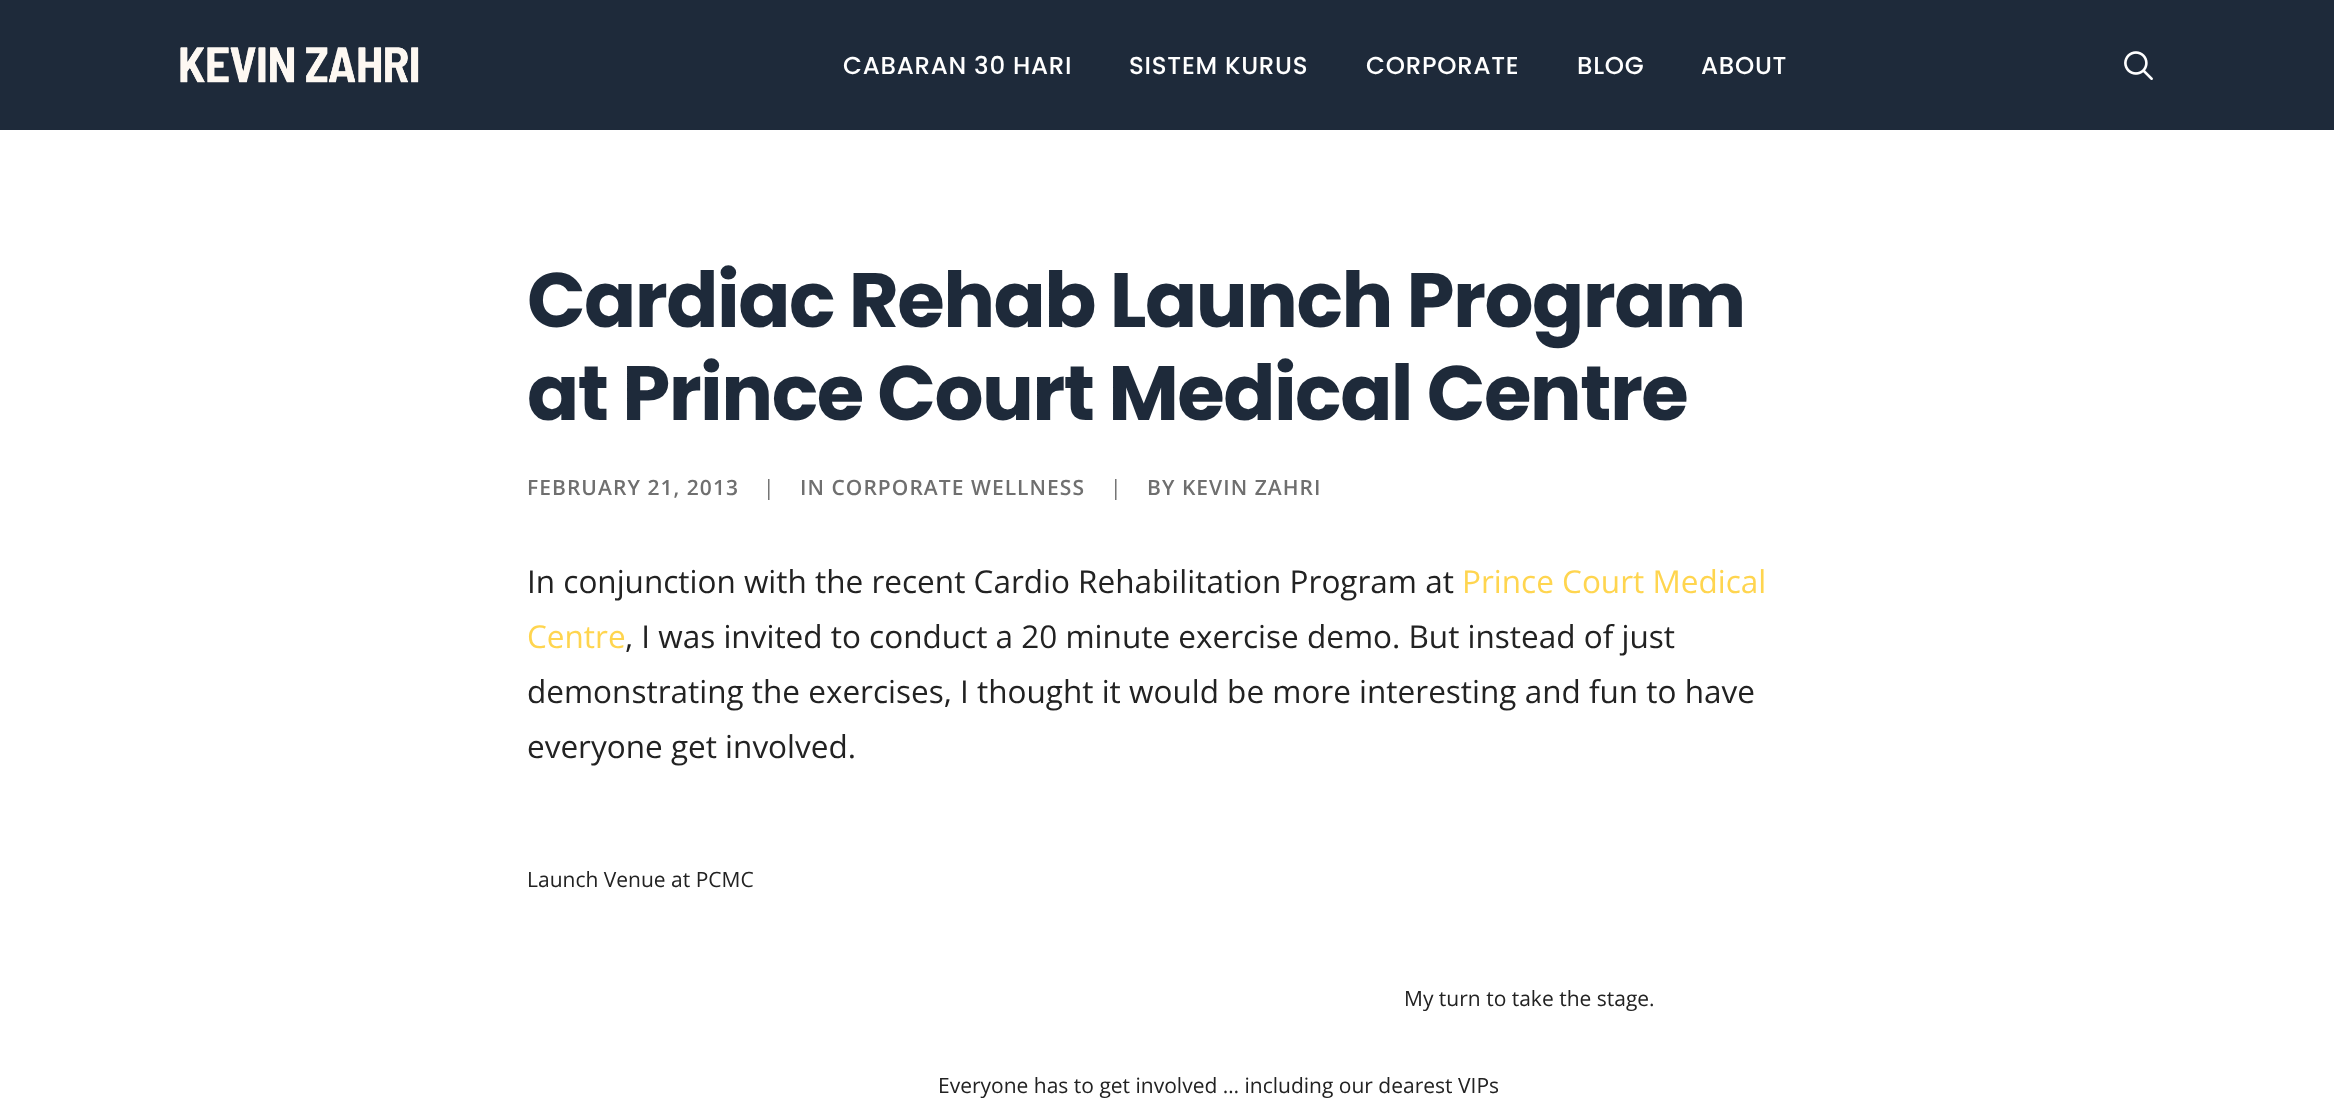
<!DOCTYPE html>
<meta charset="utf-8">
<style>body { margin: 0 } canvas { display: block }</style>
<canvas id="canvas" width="2334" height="1117"></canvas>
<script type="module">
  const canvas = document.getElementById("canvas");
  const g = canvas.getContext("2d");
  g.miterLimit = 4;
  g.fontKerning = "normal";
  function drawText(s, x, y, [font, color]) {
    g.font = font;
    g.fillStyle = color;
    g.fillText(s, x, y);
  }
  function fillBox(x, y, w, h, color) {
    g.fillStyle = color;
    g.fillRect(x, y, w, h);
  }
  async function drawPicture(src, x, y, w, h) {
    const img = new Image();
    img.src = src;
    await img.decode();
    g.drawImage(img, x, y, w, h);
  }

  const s1 = ["500 24.5px Poppins", "#FFFFFF"];
  const s2 = ["bold 77px Poppins", "#1E2A3A"];
  const s3 = ["600 21px Open Sans", "#6F6F6F"];
  const s4 = ["21px Open Sans", "#6F6F6F"];
  const s5 = ["31.5px Open Sans", "#222222"];
  const s6 = ["31.5px Open Sans", "#FFD54F"];
  const s7 = ["21px Open Sans", "#222222"];

  fillBox(0, 0, 2334, 1117, "#FFFFFF");
  fillBox(0, 0, 2334, 130, "#1E2A3A");
  await drawPicture("pic1.png", 180, 47, 239, 36);
  g.letterSpacing = "0.75px";
  drawText("CABARAN 30 HARI", 843, 74, s1);
  drawText("SISTEM KURUS", 1129, 74, s1);
  drawText("CORPORATE", 1366, 74, s1);
  drawText("BLOG", 1577, 74, s1);
  drawText("ABOUT", 1701, 74, s1);
  await drawPicture("pic2.png", 2124, 51, 29, 29);
  g.letterSpacing = "-1.55px";
  drawText("Cardiac Rehab Launch Program", 527, 327, s2);
  drawText("at Prince Court Medical Centre", 527, 420, s2);
  g.letterSpacing = "1.05px";
  drawText("FEBRUARY 21, 2013", 527, 495, s3);
  drawText("|", 763, 495, s4);
  drawText("IN CORPORATE WELLNESS", 800, 495, s3);
  drawText("|", 1110, 495, s4);
  drawText("BY KEVIN ZAHRI", 1147, 495, s3);
  g.letterSpacing = "0px";
  drawText("In conjunction with the recent Cardio Rehabilitation Program at", 527, 593, s5);
  drawText("Prince Court Medical", 1462, 593, s6);
  drawText("Centre", 527, 648, s6);
  drawText(", I was invited to conduct a 20 minute exercise demo. But instead of just", 625, 648, s5);
  drawText("demonstrating the exercises, I thought it would be more interesting and fun to have", 527, 703, s5);
  drawText("everyone get involved.", 527, 758, s5);
  drawText("Launch Venue at PCMC", 527, 887, s7);
  drawText("My turn to take the stage.", 1404, 1006, s7);
  drawText("Everyone has to get involved … including our dearest VIPs", 938, 1093, s7);
</script>
